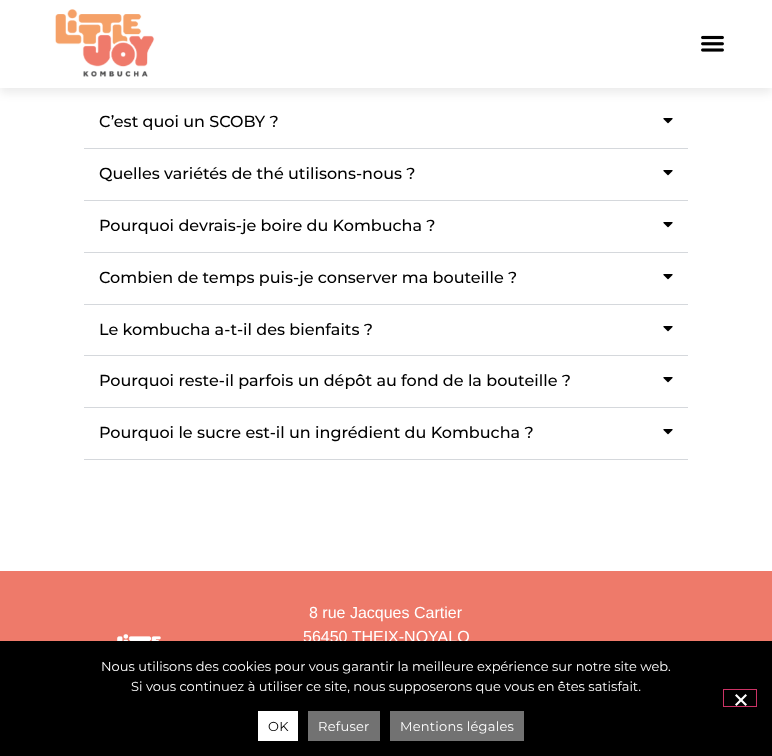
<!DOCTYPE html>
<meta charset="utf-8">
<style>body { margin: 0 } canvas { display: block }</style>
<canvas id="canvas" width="772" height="756"></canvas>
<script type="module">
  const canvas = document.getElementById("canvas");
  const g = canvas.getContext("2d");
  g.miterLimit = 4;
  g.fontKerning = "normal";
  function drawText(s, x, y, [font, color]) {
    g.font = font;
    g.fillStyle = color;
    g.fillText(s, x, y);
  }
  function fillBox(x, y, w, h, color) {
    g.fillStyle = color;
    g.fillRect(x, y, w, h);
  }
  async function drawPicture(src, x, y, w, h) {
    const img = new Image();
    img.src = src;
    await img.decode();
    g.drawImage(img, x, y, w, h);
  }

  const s1 = ["500 16px Montserrat", "#000000"];
  const s2 = ["16px Liberation Sans", "#FFFFFF"];
  const s3 = ["13px Montserrat", "#FFFFFF"];
  const s4 = ["13px Montserrat", "#000000"];

  fillBox(0, 0, 772, 756, "#FFFFFF");
  g.fillStyle = "rgba(0, 0, 0, 0.08)";
  g.filter = "blur(5px)";
  g.beginPath();
  g.rect(0, 5, 772, 88);
  g.fill();
  g.filter = "none";
  fillBox(0, 0, 772, 88, "#FFFFFF");
  await drawPicture("pic1.png", 55, 9, 100, 68);
  await drawPicture("pic2.png", 701, 35, 23, 17);
  fillBox(84, 148, 604, 1, "#D5D8DC");
  drawText("C’est quoi un SCOBY ?", 99, 127, s1);
  await drawPicture("pic3.png", 663, 118, 10, 6);
  fillBox(84, 200, 604, 1, "#D5D8DC");
  drawText("Quelles variétés de thé utilisons-nous ?", 99, 179, s1);
  await drawPicture("pic3.png", 663, 170, 10, 6);
  fillBox(84, 252, 604, 1, "#D5D8DC");
  drawText("Pourquoi devrais-je boire du Kombucha ?", 99, 231, s1);
  await drawPicture("pic3.png", 663, 222, 10, 6);
  fillBox(84, 304, 604, 1, "#D5D8DC");
  drawText("Combien de temps puis-je conserver ma bouteille ?", 99, 283, s1);
  await drawPicture("pic3.png", 663, 274, 10, 6);
  fillBox(84, 355, 604, 1, "#D5D8DC");
  drawText("Le kombucha a-t-il des bienfaits ?", 99, 335, s1);
  await drawPicture("pic3.png", 663, 326, 10, 6);
  fillBox(84, 407, 604, 1, "#D5D8DC");
  drawText("Pourquoi reste-il parfois un dépôt au fond de la bouteille ?", 99, 386, s1);
  await drawPicture("pic3.png", 663, 377, 10, 6);
  fillBox(84, 459, 604, 1, "#D5D8DC");
  drawText("Pourquoi le sucre est-il un ingrédient du Kombucha ?", 99, 438, s1);
  await drawPicture("pic3.png", 663, 429, 10, 6);
  fillBox(0, 571, 772, 70, "#EE7A6A");
  await drawPicture("pic4.png", 117, 634, 44, 7);
  drawText("8 rue Jacques Cartier", 309, 618, s2);
  drawText("56450 THEIX-NOYALO", 303, 642, s2);
  fillBox(0, 641, 772, 115, "#000000");
  drawText("Nous utilisons des cookies pour vous garantir la meilleure expérience sur notre site web.", 101, 671, s3);
  drawText("Si vous continuez à utiliser ce site, nous supposerons que vous en êtes satisfait.", 131, 691, s3);
  g.strokeStyle = "#CC3366";
  g.strokeRect(723.5, 689.5, 33, 17);
  g.beginPath();
  g.moveTo(745.5, 694);
  g.lineTo(747, 695.5);
  g.lineTo(736.5, 706);
  g.lineTo(735, 704.5);
  g.closePath();
  g.fill();
  g.beginPath();
  g.moveTo(735, 695.5);
  g.lineTo(736.5, 694);
  g.lineTo(747, 704.5);
  g.lineTo(745.5, 706);
  g.closePath();
  g.fill();
  fillBox(258, 711, 40, 30, "#FFFFFF");
  g.letterSpacing = "0.25px";
  drawText("OK", 268, 731, s4);
  fillBox(308, 711, 72, 30, "#727272");
  drawText("Refuser", 318, 731, s3);
  fillBox(390, 711, 134, 30, "#727272");
  drawText("Mentions légales", 400, 731, s3);
</script>
